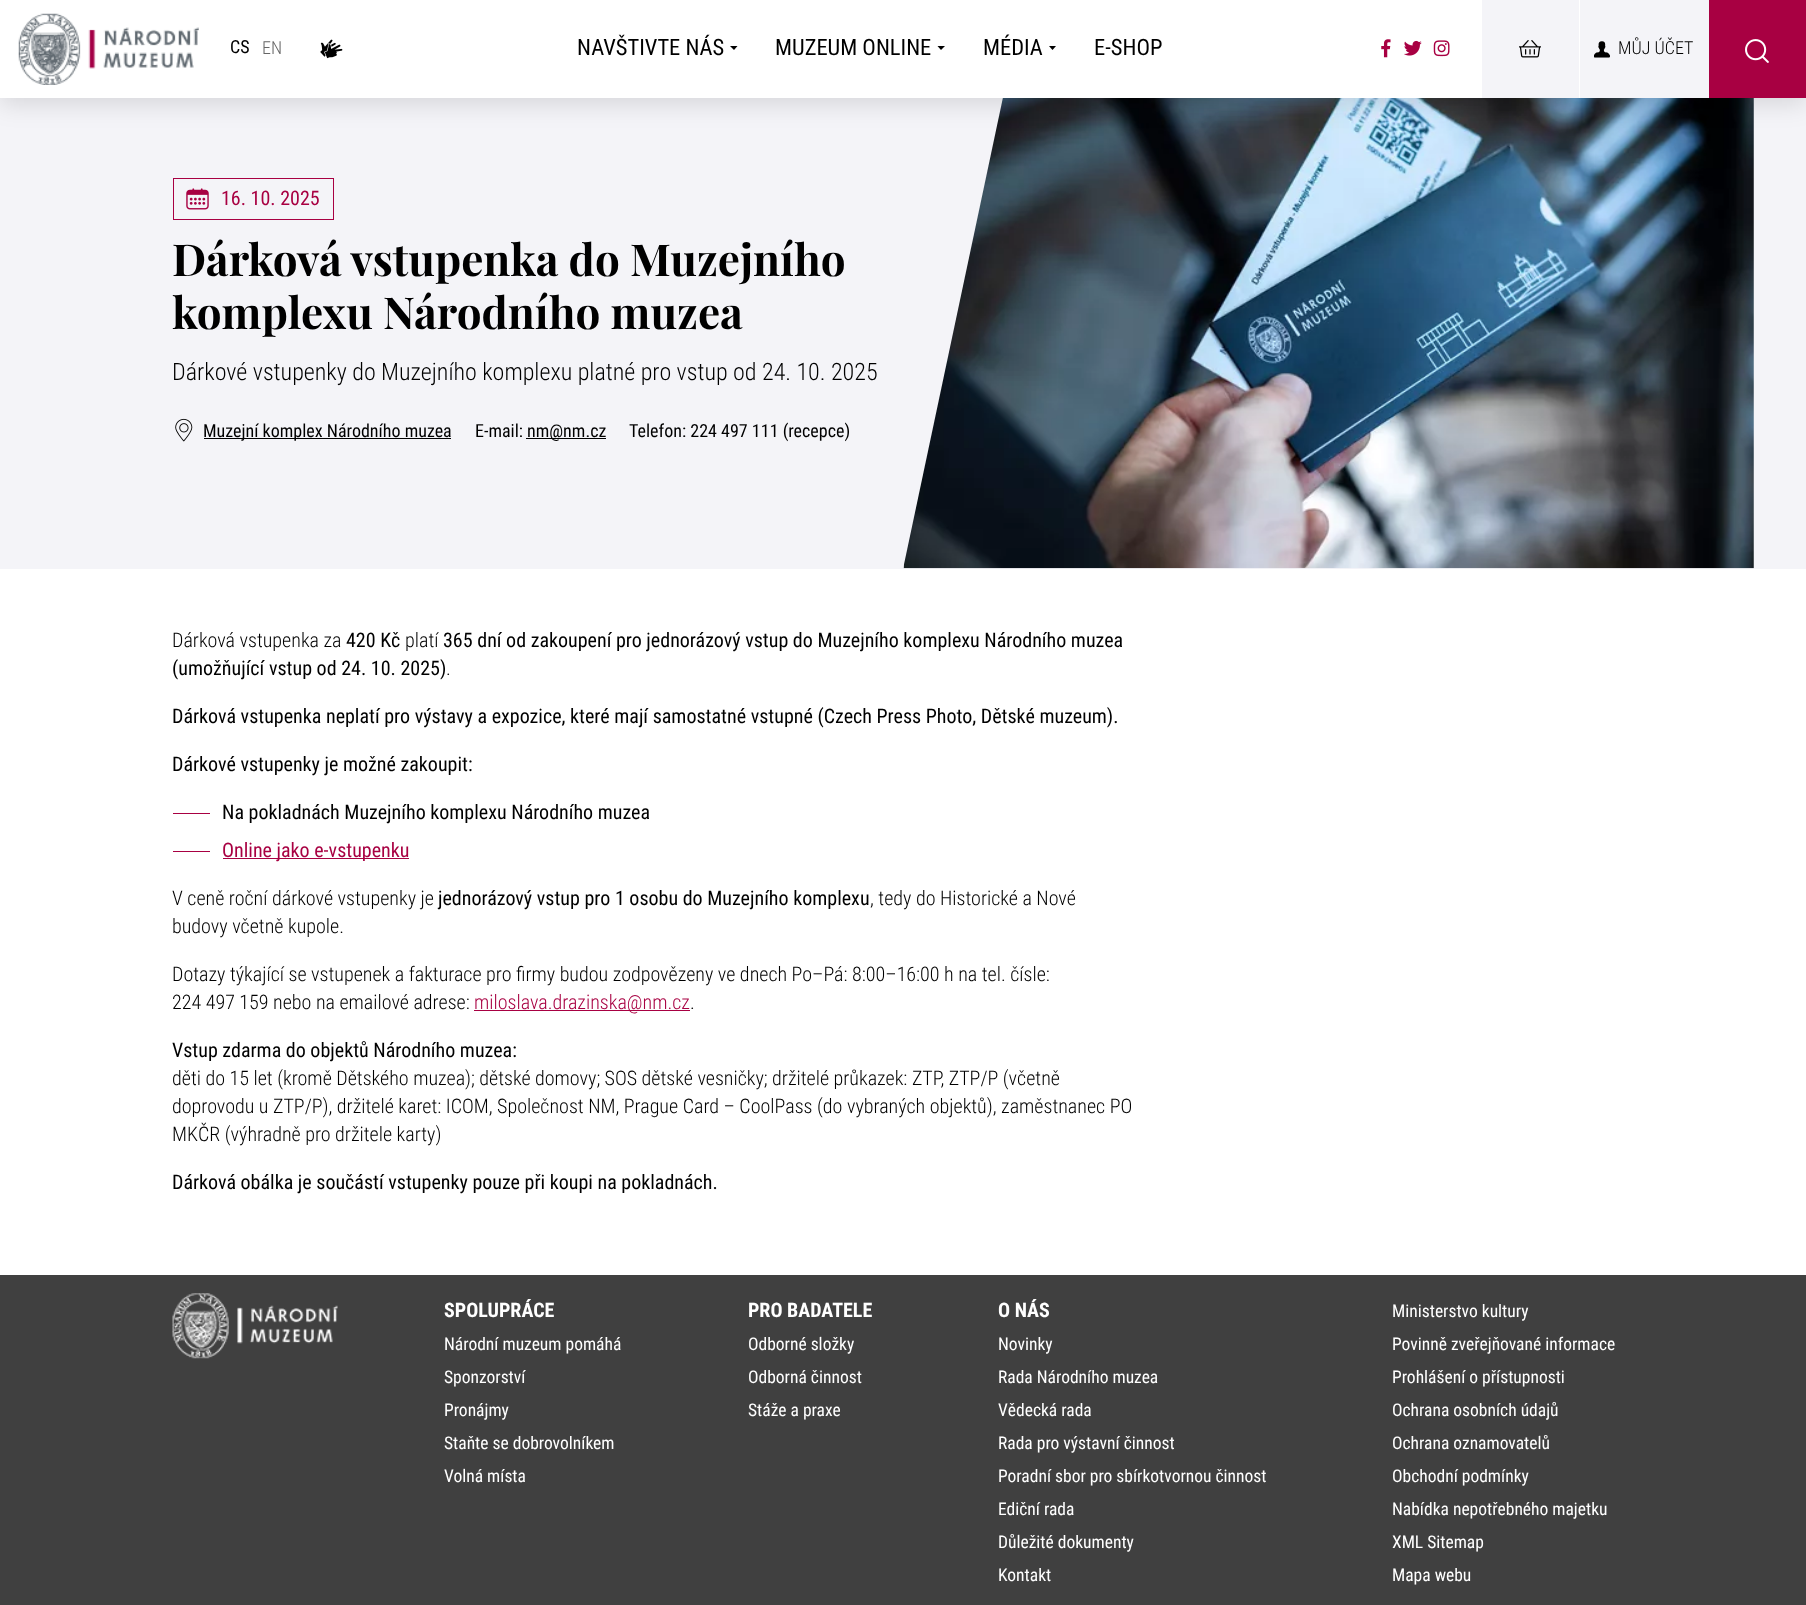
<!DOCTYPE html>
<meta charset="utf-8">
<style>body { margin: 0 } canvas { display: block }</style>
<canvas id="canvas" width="1806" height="1605"></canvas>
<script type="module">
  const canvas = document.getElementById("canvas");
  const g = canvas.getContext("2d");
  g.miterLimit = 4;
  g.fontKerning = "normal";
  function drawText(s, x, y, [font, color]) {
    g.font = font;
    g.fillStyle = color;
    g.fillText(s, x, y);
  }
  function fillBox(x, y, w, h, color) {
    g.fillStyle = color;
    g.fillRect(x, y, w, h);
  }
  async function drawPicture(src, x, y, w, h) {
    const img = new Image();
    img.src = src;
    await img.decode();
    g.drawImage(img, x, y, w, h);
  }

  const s1 = ["18px Roboto Condensed", "#000000"];
  const s2 = ["300 18px Roboto Condensed", "#666666"];
  const s3 = ["22.5px Roboto Condensed", "#000000"];
  const s4 = ["300 18px Roboto Condensed", "#000000"];
  const s5 = ["20px Roboto Condensed", "#A80042"];
  const s6 = ["bold 44px Playfair Display", "#000000"];
  const s7 = ["300 24px Roboto Condensed", "#000000"];
  const s8 = ["300 20px Roboto Condensed", "#000000"];
  const s9 = ["20px Roboto Condensed", "#000000"];
  const s10 = ["300 20px Roboto Condensed", "#A80042"];
  const s11 = ["bold 20px Roboto Condensed", "#FFFFFF"];
  const s12 = ["17.5px Roboto Condensed", "#FFFFFF"];

  fillBox(0, 0, 1806, 1605, "#FFFFFF");
  fillBox(0, 98, 1806, 471, "#F4F4F8");
  await drawPicture("pic11.png", 903, 98, 851, 471);
  g.beginPath();
  g.moveTo(159, 69);
  g.lineTo(1009, 69);
  g.lineTo(903, 569);
  g.lineTo(53, 569);
  g.closePath();
  g.fill();
  g.fillStyle = "rgba(0, 0, 0, 0.12)";
  g.filter = "blur(12.5px)";
  g.beginPath();
  g.rect(0, 6, 1806, 98);
  g.fill();
  g.filter = "none";
  fillBox(0, 0, 1482, 98, "#FFFFFF");
  await drawPicture("pic1.png", 18, 13, 181, 72);
  drawText("CS", 230, 53, s1);
  drawText("EN", 262, 54, s2);
  await drawPicture("pic2.png", 320, 39, 23, 20);
  drawText("NAVŠTIVTE NÁS", 577, 55, s3);
  g.beginPath();
  g.moveTo(730, 46);
  g.lineTo(737.5, 46);
  g.lineTo(734, 50);
  g.closePath();
  g.fill();
  drawText("MUZEUM ONLINE", 775, 55, s3);
  g.beginPath();
  g.moveTo(937.5, 46);
  g.lineTo(945, 46);
  g.lineTo(941, 50);
  g.closePath();
  g.fill();
  drawText("MÉDIA", 983, 55, s3);
  g.beginPath();
  g.moveTo(1049, 46);
  g.lineTo(1056, 46);
  g.lineTo(1052.5, 50);
  g.closePath();
  g.fill();
  drawText("E-SHOP", 1094, 55, s3);
  await drawPicture("pic3.png", 1381, 39, 10, 19);
  await drawPicture("pic4.png", 1404, 40, 18, 16);
  await drawPicture("pic5.png", 1433, 40, 17, 17);
  fillBox(1482, 0, 97, 98, "#F4F4F8");
  await drawPicture("pic6.png", 1519, 40, 22, 18);
  fillBox(1580, 0, 129, 98, "#F4F4F8");
  await drawPicture("pic7.png", 1594, 41, 16, 17);
  fillBox(1579, 0, 1, 98, "#FFFFFF");
  drawText("MŮJ ÚČET", 1618, 54, s4);
  fillBox(1709, 0, 97, 98, "#A80042");
  await drawPicture("pic8.png", 1745, 39, 24, 24);
  g.strokeStyle = "#A80042";
  g.strokeRect(173.5, 178.5, 160, 41);
  await drawPicture("pic9.png", 186, 188, 23, 22);
  drawText("16. 10. 2025", 221, 205, s5);
  drawText("Dárková vstupenka do Muzejního", 172, 276, s6);
  drawText("komplexu Národního muzea", 172, 329, s6);
  drawText("Dárkové vstupenky do Muzejního komplexu platné pro vstup od 24. 10. 2025", 172, 380, s7);
  await drawPicture("pic10.png", 175, 418, 18, 24);
  fillBox(204, 438, 247, 1, "#000000");
  drawText("Muzejní komplex Národního muzea", 203, 437, s1);
  drawText("E-mail:", 475, 437, s1);
  fillBox(526, 438, 80, 1, "#000000");
  drawText("nm@nm.cz", 527, 437, s1);
  drawText("Telefon: 224 497 111 (recepce)", 629, 437, s1);
  drawText("Dárková vstupenka za", 172, 647, s8);
  drawText("420 Kč", 346, 647, s9);
  drawText("platí", 405, 647, s8);
  drawText("365 dní od zakoupení pro jednorázový vstup do Muzejního komplexu Národního muzea", 443, 647, s9);
  drawText("(umožňující vstup od 24. 10. 2025)", 172, 675, s9);
  drawText(".", 446, 675, s8);
  drawText("Dárková vstupenka neplatí pro výstavy a expozice, které mají samostatné vstupné (Czech Press Photo, Dětské muzeum).", 172, 723, s9);
  drawText("Dárkové vstupenky je možné zakoupit:", 172, 771, s9);
  fillBox(173, 813, 37, 1, "#A80042");
  drawText("Na pokladnách Muzejního komplexu Národního muzea", 222, 819, s9);
  fillBox(173, 851, 37, 1, "#A80042");
  fillBox(223, 858, 186, 1, "#A80042");
  drawText("Online jako e-vstupenku", 222, 857, s5);
  drawText("V ceně roční dárkové vstupenky je", 172, 905, s8);
  drawText("jednorázový vstup pro 1 osobu do Muzejního komplexu", 438, 905, s9);
  drawText(", tedy do Historické a Nové", 870, 905, s8);
  drawText("budovy včetně kupole.", 172, 933, s8);
  drawText("Dotazy týkající se vstupenek a fakturace pro firmy budou zodpovězeny ve dnech Po–Pá: 8:00–16:00 h na tel. čísle:", 172, 981, s8);
  drawText("224 497 159 nebo na emailové adrese:", 172, 1009, s8);
  fillBox(474, 1010, 216, 1, "#A80042");
  drawText("miloslava.drazinska@nm.cz", 474, 1009, s10);
  drawText(".", 690, 1009, s8);
  drawText("Vstup zdarma do objektů Národního muzea:", 172, 1057, s9);
  drawText("děti do 15 let (kromě Dětského muzea); dětské domovy; SOS dětské vesničky; držitelé průkazek: ZTP, ZTP/P (včetně", 172, 1085, s8);
  drawText("doprovodu u ZTP/P), držitelé karet: ICOM, Společnost NM, Prague Card – CoolPass (do vybraných objektů), zaměstnanec PO", 172, 1113, s8);
  drawText("MKČR (výhradně pro držitele karty)", 172, 1141, s8);
  drawText("Dárková obálka je součástí vstupenky pouze při koupi na pokladnách.", 172, 1189, s9);
  fillBox(0, 1275, 1806, 330, "#404040");
  await drawPicture("pic12.png", 172, 1293, 166, 66);
  drawText("SPOLUPRÁCE", 444, 1317, s11);
  drawText("Národní muzeum pomáhá", 444, 1350, s12);
  drawText("Sponzorství", 444, 1383, s12);
  drawText("Pronájmy", 444, 1416, s12);
  drawText("Staňte se dobrovolníkem", 444, 1449, s12);
  drawText("Volná místa", 444, 1482, s12);
  drawText("PRO BADATELE", 748, 1317, s11);
  drawText("Odborné složky", 748, 1350, s12);
  drawText("Odborná činnost", 748, 1383, s12);
  drawText("Stáže a praxe", 748, 1416, s12);
  drawText("O NÁS", 998, 1317, s11);
  drawText("Novinky", 998, 1350, s12);
  drawText("Rada Národního muzea", 998, 1383, s12);
  drawText("Vědecká rada", 998, 1416, s12);
  drawText("Rada pro výstavní činnost", 998, 1449, s12);
  drawText("Poradní sbor pro sbírkotvornou činnost", 998, 1482, s12);
  drawText("Ediční rada", 998, 1515, s12);
  drawText("Důležité dokumenty", 998, 1548, s12);
  drawText("Kontakt", 998, 1581, s12);
  drawText("Ministerstvo kultury", 1392, 1317, s12);
  drawText("Povinně zveřejňované informace", 1392, 1350, s12);
  drawText("Prohlášení o přístupnosti", 1392, 1383, s12);
  drawText("Ochrana osobních údajů", 1392, 1416, s12);
  drawText("Ochrana oznamovatelů", 1392, 1449, s12);
  drawText("Obchodní podmínky", 1392, 1482, s12);
  drawText("Nabídka nepotřebného majetku", 1392, 1515, s12);
  drawText("XML Sitemap", 1392, 1548, s12);
  drawText("Mapa webu", 1392, 1581, s12);
</script>
